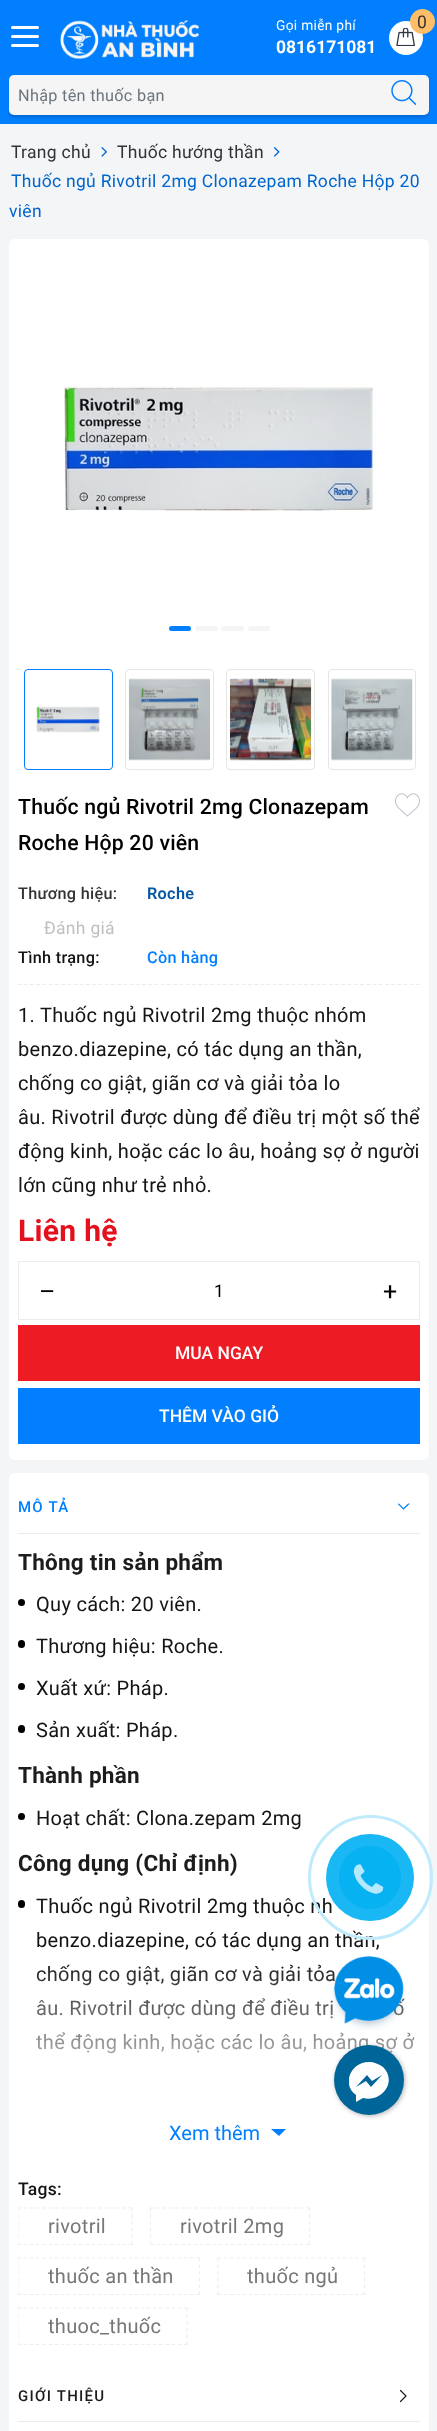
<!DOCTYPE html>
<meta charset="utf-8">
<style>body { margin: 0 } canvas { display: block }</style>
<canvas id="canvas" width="437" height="2431"></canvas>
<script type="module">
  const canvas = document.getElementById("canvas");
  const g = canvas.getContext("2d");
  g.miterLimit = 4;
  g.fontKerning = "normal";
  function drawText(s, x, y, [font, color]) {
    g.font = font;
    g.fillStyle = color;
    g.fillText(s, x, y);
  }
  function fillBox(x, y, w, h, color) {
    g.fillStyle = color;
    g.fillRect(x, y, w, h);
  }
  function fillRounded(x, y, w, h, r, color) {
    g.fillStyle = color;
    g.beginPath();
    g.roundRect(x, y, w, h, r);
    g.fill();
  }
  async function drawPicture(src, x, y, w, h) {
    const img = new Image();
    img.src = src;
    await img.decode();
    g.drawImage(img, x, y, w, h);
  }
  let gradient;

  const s1 = ["13.75px Roboto", "#FFFFFF"];
  const s2 = ["bold 17.5px Roboto", "#FFFFFF"];
  const s3 = ["17.5px Roboto", "#333333"];
  const s4 = ["16.25px Roboto", "#6C757D"];
  const s5 = ["17.5px Roboto", "#0066CD"];
  const s6 = ["500 21.25px Roboto", "#000000"];
  const s7 = ["500 16.25px Roboto", "#333333"];
  const s8 = ["600 16.25px Roboto", "#0657A3"];
  const s9 = ["17.5px Roboto", "#BFBFBF"];
  const s10 = ["500 16.25px Roboto", "#141414"];
  const s11 = ["500 16.25px Roboto", "#017FFF"];
  const s12 = ["20px Roboto", "#141414"];
  const s13 = ["bold 30px Roboto", "#E5101D"];
  const s14 = ["25px Roboto", "#000000"];
  const s15 = ["17.5px Roboto", "#000000"];
  const s16 = ["500 17.5px Roboto", "#FFFFFF"];
  const s17 = ["500 15px Roboto", "#017FFF"];
  const s18 = ["bold 22.5px Roboto", "#1C1C1C"];
  const s19 = ["20px Roboto", "#017FFF"];
  const s20 = ["500 17.5px Roboto", "#141414"];
  const s21 = ["20px Roboto", "#777777"];
  const s22 = ["500 15px Roboto", "#1C1C1C"];

  fillBox(0, 0, 437, 2431, "#F3F5F7");
  fillBox(0, 0, 437, 124, "#017FFF");
  fillRounded(11, 26, 28, 3, 1.5, "#FFFFFF");
  fillRounded(11, 35, 28, 3, 1.5, "#FFFFFF");
  fillRounded(11, 44, 28, 3, 1.5, "#FFFFFF");
  await drawPicture("pic1.png", 60, 20, 140, 40);
  g.letterSpacing = "0.3px";
  drawText("Gọi miễn phí", 276, 30, s1);
  g.letterSpacing = "0px";
  drawText("0816171081", 276, 53, s2);
  g.beginPath();
  g.arc(406, 38, 17, 0, Math.PI * 2);
  g.fill();
  await drawPicture("pic2.png", 396, 28, 19, 18);
  g.fillStyle = "#FEBD69";
  g.beginPath();
  g.arc(422.5, 21.5, 12.5, 0, Math.PI * 2);
  g.fill();
  g.letterSpacing = "0.3px";
  drawText("0", 417, 28, s3);
  g.fillStyle = "rgba(0, 0, 0, 0.14)";
  g.filter = "blur(1px)";
  g.beginPath();
  g.roundRect(9, 78, 420, 40, 5);
  g.fill();
  g.filter = "none";
  g.fillStyle = "rgba(0, 0, 0, 0.12)";
  g.filter = "blur(0.5px)";
  g.beginPath();
  g.roundRect(9, 75, 420, 40, 5);
  g.fill();
  g.filter = "none";
  fillRounded(9, 75, 420, 40, 5, "#F5F5F5");
  drawText("Nhập tên thuốc bạn", 18, 101, s4);
  await drawPicture("pic3.png", 391, 80, 25, 25);
  drawText("Trang chủ", 11, 158, s3);
  await drawPicture("pic4.png", 101, 147, 6, 10);
  drawText("Thuốc hướng thần", 117, 158, s3);
  await drawPicture("pic5.png", 273, 147, 7, 10);
  drawText("Thuốc ngủ Rivotril 2mg Clonazepam Roche Hộp 20", 11, 187, s5);
  drawText("viên", 9, 217, s5);
  fillRounded(9, 239, 420, 1221, 6, "#FFFFFF");
  await drawPicture("pic6.png", 63, 386, 313, 125);
  fillRounded(169, 626, 22, 5, 2.5, "#017FFF");
  fillRounded(195, 626, 23, 5, 2.5, "#F5F5F5");
  fillRounded(221, 626, 23, 5, 2.5, "#F5F5F5");
  fillRounded(248, 626, 22, 5, 2.5, "#F5F5F5");
  g.beginPath();
  g.roundRect(24.5, 669.5, 88, 100, 3.5);
  g.strokeStyle = "#017FFF";
  g.stroke();
  await drawPicture("pic7.png", 36, 706, 64, 27);
  g.beginPath();
  g.roundRect(125.5, 669.5, 88, 100, 3.5);
  g.strokeStyle = "#E6E6E6";
  g.stroke();
  await drawPicture("pic8.png", 128, 678, 82, 83);
  g.beginPath();
  g.roundRect(226.5, 669.5, 88, 100, 3.5);
  g.stroke();
  await drawPicture("pic9.png", 230, 678, 82, 83);
  g.beginPath();
  g.roundRect(328.5, 669.5, 87, 100, 3.5);
  g.stroke();
  await drawPicture("pic10.png", 331, 678, 82, 83);
  g.letterSpacing = "0.2px";
  drawText("Thuốc ngủ Rivotril 2mg Clonazepam", 18, 814, s6);
  drawText("Roche Hộp 20 viên", 18, 850, s6);
  await drawPicture("pic11.png", 395, 793, 25, 24);
  g.letterSpacing = "0.3px";
  drawText("Thương hiệu:", 18, 899, s7);
  drawText("Roche", 147, 899, s8);
  drawText("Đánh giá", 44, 934, s9);
  g.beginPath();
  g.moveTo(17.5, 984.5);
  g.lineTo(420, 984.5);
  g.strokeStyle = "#EAEBF3";
  g.lineWidth = 1.2;
  g.setLineDash([3.75, 2.48]);
  g.stroke();
  drawText("Tình trạng:", 18, 963, s10);
  drawText("Còn hàng", 147, 963, s11);
  drawText("1. Thuốc ngủ Rivotril 2mg thuộc nhóm", 18, 1022, s12);
  drawText("benzo.diazepine, có tác dụng an thần,", 18, 1056, s12);
  drawText("chống co giật, giãn cơ và giải tỏa lo", 18, 1090, s12);
  drawText("âu. Rivotril được dùng để điều trị một số thể", 18, 1124, s12);
  drawText("động kinh, hoặc các lo âu, hoảng sợ ở người", 18, 1158, s12);
  drawText("lớn cũng như trẻ nhỏ.", 18, 1192, s12);
  drawText("Liên hệ", 18, 1241, s13);
  g.strokeStyle = "#EBEBEB";
  g.lineWidth = 1;
  g.setLineDash([]);
  g.strokeRect(18.5, 1261.5, 401, 58);
  drawText("–", 39, 1300, s14);
  drawText("1", 214, 1297, s15);
  drawText("+", 383, 1300, s14);
  fillBox(18, 1325, 402, 56, "#ED1B24");
  g.letterSpacing = "0px";
  drawText("MUA NGAY", 175, 1359, s16);
  fillBox(18, 1388, 402, 56, "#017FFF");
  drawText("THÊM VÀO GIỎ", 159, 1422, s16);
  fillRounded(9, 1473, 420, 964, 6, "#FFFFFF");
  fillBox(18, 1533, 402, 1, "#EBEBEB");
  g.letterSpacing = "1.25px";
  drawText("MÔ TẢ", 18, 1512, s17);
  g.save();
  g.beginPath();
  g.moveTo(410, 1503.5);
  g.lineTo(410, 1510.5);
  g.lineTo(398, 1510.5);
  g.lineTo(398, 1503.5);
  g.closePath();
  g.clip();
  g.beginPath();
  g.moveTo(409, 1503.5);
  g.lineTo(403.5, 1509);
  g.lineTo(398, 1503.5);
  g.strokeStyle = "#017FFF";
  g.lineWidth = 1.2;
  g.lineCap = "round";
  g.stroke();
  g.restore();
  g.letterSpacing = "0.25px";
  drawText("Thông tin sản phẩm", 18, 1570, s18);
  g.fillStyle = "#000000";
  g.beginPath();
  g.arc(21.5, 1602.5, 3.5, 0, Math.PI * 2);
  g.fill();
  g.letterSpacing = "0.3px";
  drawText("Quy cách: 20 viên.", 36, 1611, s12);
  fillRounded(18, 1640, 7, 8, 3.5, "#000000");
  drawText("Thương hiệu: Roche.", 36, 1653, s12);
  g.fillStyle = "#000000";
  g.beginPath();
  g.arc(21.5, 1686.5, 3.5, 0, Math.PI * 2);
  g.fill();
  drawText("Xuất xứ: Pháp.", 36, 1695, s12);
  fillRounded(18, 1725, 7, 8, 3.5, "#000000");
  drawText("Sản xuất: Pháp.", 36, 1737, s12);
  g.letterSpacing = "0.25px";
  drawText("Thành phần", 18, 1783, s18);
  g.fillStyle = "#000000";
  g.beginPath();
  g.arc(21.5, 1816.5, 3.5, 0, Math.PI * 2);
  g.fill();
  g.letterSpacing = "0.3px";
  drawText("Hoạt chất: Clona.zepam 2mg", 36, 1825, s12);
  g.letterSpacing = "0.25px";
  drawText("Công dụng (Chỉ định)", 18, 1871, s18);
  fillRounded(18, 1900, 7, 8, 3.5, "#000000");
  g.letterSpacing = "0.3px";
  drawText("Thuốc ngủ Rivotril 2mg thuộc nh", 36, 1913, s12);
  drawText("benzo.diazepine, có tác dụng an thần,", 36, 1947, s12);
  drawText("chống co giật, giãn cơ và giải tỏa", 36, 1981, s12);
  drawText("âu. Rivotril được dùng để điều trị", 36, 2015, s12);
  drawText("ố", 393, 2015, s12);
  drawText("thể động kinh, hoặc các lo âu, hoảng sợ ở", 36, 2049, s12);
  gradient = g.createLinearGradient(219, 1959, 219, 2109);
  gradient.addColorStop(0, "rgba(255, 255, 255, 0)");
  gradient.addColorStop(0.33, "rgba(255, 255, 255, 0.33)");
  gradient.addColorStop(0.83, "rgba(255, 255, 255, 0.8)");
  gradient.addColorStop(1, "#FFFFFF");
  g.fillStyle = gradient;
  g.fillRect(36, 1964, 379, 90);
  g.letterSpacing = "0px";
  drawText("Xem thêm", 169, 2140, s19);
  g.beginPath();
  g.moveTo(271, 2129);
  g.lineTo(286, 2129);
  g.lineTo(279, 2136);
  g.closePath();
  g.fill();
  g.letterSpacing = "0.3px";
  drawText("Tags:", 18, 2195, s20);
  g.beginPath();
  g.moveTo(17.5, 2208);
  g.lineTo(132.5, 2208);
  g.strokeStyle = "#EEEEEE";
  g.lineWidth = 1.2;
  g.setLineDash([3.75, 2.42]);
  g.stroke();
  g.beginPath();
  g.moveTo(132, 2207.5);
  g.lineTo(132, 2245);
  g.setLineDash([3.75, 3]);
  g.stroke();
  g.beginPath();
  g.moveTo(17.5, 2244.5);
  g.lineTo(132.5, 2244.5);
  g.setLineDash([3.75, 2.42]);
  g.stroke();
  g.save();
  g.beginPath();
  g.rect(18, 1481, 402, 889);
  g.clip();
  g.beginPath();
  g.moveTo(18, 2207.5);
  g.lineTo(18, 2245);
  g.setLineDash([3.75, 3]);
  g.stroke();
  g.restore();
  drawText("rivotril", 48, 2233, s21);
  g.beginPath();
  g.moveTo(150, 2208);
  g.lineTo(310, 2208);
  g.setLineDash([3.75, 2.5]);
  g.stroke();
  g.beginPath();
  g.moveTo(309.5, 2207.5);
  g.lineTo(309.5, 2245);
  g.setLineDash([3.75, 3]);
  g.stroke();
  g.beginPath();
  g.moveTo(150, 2244.5);
  g.lineTo(310, 2244.5);
  g.setLineDash([3.75, 2.5]);
  g.stroke();
  g.beginPath();
  g.moveTo(150.5, 2207.5);
  g.lineTo(150.5, 2245);
  g.setLineDash([3.75, 3]);
  g.stroke();
  drawText("rivotril 2mg", 180, 2233, s21);
  g.beginPath();
  g.moveTo(17.5, 2258);
  g.lineTo(200, 2258);
  g.setLineDash([3.75, 2.41]);
  g.stroke();
  g.beginPath();
  g.moveTo(199.5, 2257.5);
  g.lineTo(199.5, 2295);
  g.setLineDash([3.75, 3]);
  g.stroke();
  g.beginPath();
  g.moveTo(17.5, 2294.5);
  g.lineTo(200, 2294.5);
  g.setLineDash([3.75, 2.41]);
  g.stroke();
  g.save();
  g.beginPath();
  g.rect(18, 1481, 402, 889);
  g.clip();
  g.beginPath();
  g.moveTo(18, 2257.5);
  g.lineTo(18, 2295);
  g.setLineDash([3.75, 3]);
  g.stroke();
  g.restore();
  drawText("thuốc an thần", 48, 2283, s21);
  g.beginPath();
  g.moveTo(217.5, 2258);
  g.lineTo(365, 2258);
  g.setLineDash([3.75, 2.5]);
  g.stroke();
  g.beginPath();
  g.moveTo(364.5, 2257.5);
  g.lineTo(364.5, 2295);
  g.setLineDash([3.75, 3]);
  g.stroke();
  g.beginPath();
  g.moveTo(217.5, 2294.5);
  g.lineTo(365, 2294.5);
  g.setLineDash([3.75, 2.5]);
  g.stroke();
  g.beginPath();
  g.moveTo(218, 2257.5);
  g.lineTo(218, 2295);
  g.setLineDash([3.75, 3]);
  g.stroke();
  drawText("thuốc ngủ", 247, 2283, s21);
  g.beginPath();
  g.moveTo(17.5, 2308);
  g.lineTo(187.5, 2308);
  g.setLineDash([3.75, 2.41]);
  g.stroke();
  g.beginPath();
  g.moveTo(187, 2307.5);
  g.lineTo(187, 2345);
  g.setLineDash([3.75, 3]);
  g.stroke();
  g.beginPath();
  g.moveTo(17.5, 2344.5);
  g.lineTo(187.5, 2344.5);
  g.setLineDash([3.75, 2.41]);
  g.stroke();
  g.save();
  g.beginPath();
  g.rect(18, 1481, 402, 889);
  g.clip();
  g.beginPath();
  g.moveTo(18, 2307.5);
  g.lineTo(18, 2345);
  g.setLineDash([3.75, 3]);
  g.stroke();
  g.restore();
  drawText("thuoc_thuốc", 48, 2333, s21);
  fillBox(18, 2421, 402, 1, "#EBEBEB");
  g.letterSpacing = "1.25px";
  drawText("GIỚI THIỆU", 18, 2401, s22);
  g.beginPath();
  g.moveTo(400.5, 2390.5);
  g.lineTo(406, 2396);
  g.lineTo(400.5, 2401.5);
  g.strokeStyle = "#1C1C1C";
  g.lineCap = "round";
  g.setLineDash([]);
  g.stroke();
  g.beginPath();
  g.arc(370.5, 1877.5, 61, 0, Math.PI * 2);
  g.strokeStyle = "#BFEBFC";
  g.lineWidth = 3;
  g.stroke();
  fillRounded(326, 1834, 88, 87, 43.5, "rgba(0, 175, 242, 0.9)");
  fillRounded(339, 1846, 62, 63, 31, "rgba(0, 175, 242, 0.7)");
  await drawPicture("pic12.png", 353, 1864, 31, 30);
  await drawPicture("pic13.png", 332, 1956, 74, 74);
  g.fillStyle = "rgba(0, 0, 0, 0.3)";
  g.filter = "blur(2.5px)";
  g.beginPath();
  g.roundRect(335, 2046, 70, 70, 35);
  g.fill();
  g.filter = "none";
  g.fillStyle = "#006699";
  g.beginPath();
  g.arc(369, 2080, 35, 0, Math.PI * 2);
  g.fill();
  g.save();
  g.beginPath();
  g.rect(349, 2061, 40, 42);
  g.clip();
  g.fillStyle = "#FFFFFF";
  g.beginPath();
  g.moveTo(369, 2062);
  g.bezierCurveTo(351, 2062, 341, 2084, 356, 2095);
  g.lineTo(356, 2102);
  g.lineTo(363, 2098);
  g.bezierCurveTo(381, 2103, 398, 2082, 383, 2067);
  g.bezierCurveTo(379, 2064, 374, 2062, 369, 2062);
  g.closePath();
  g.moveTo(371, 2087);
  g.lineTo(366, 2081);
  g.lineTo(356, 2087);
  g.lineTo(367, 2075);
  g.lineTo(372, 2081);
  g.lineTo(382, 2075);
  g.closePath();
  g.fill();
  g.restore();
</script>
